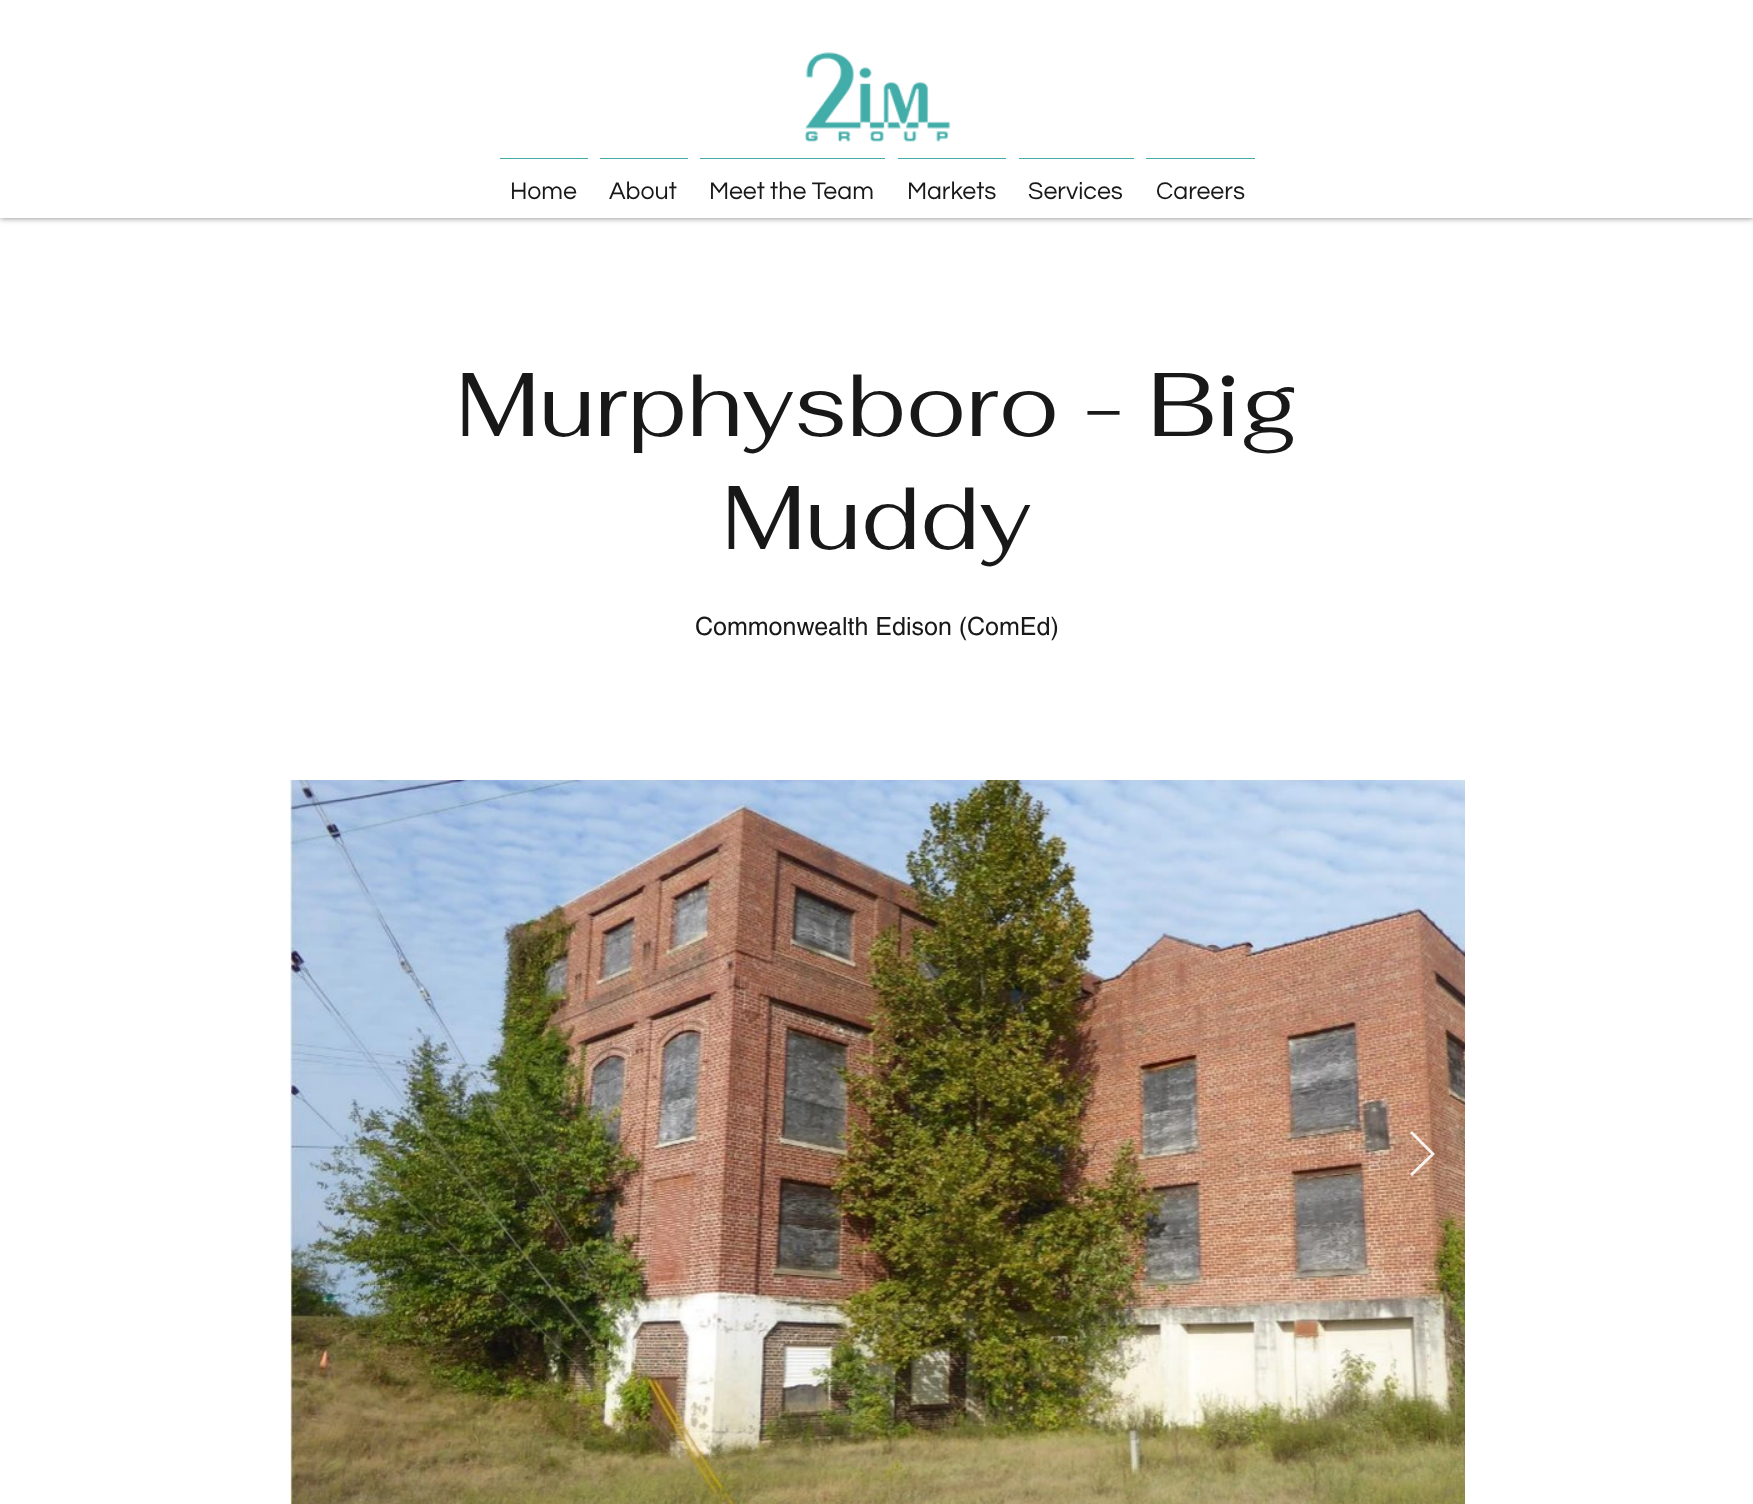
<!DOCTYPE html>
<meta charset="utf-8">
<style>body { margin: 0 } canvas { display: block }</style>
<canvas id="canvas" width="1753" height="1504"></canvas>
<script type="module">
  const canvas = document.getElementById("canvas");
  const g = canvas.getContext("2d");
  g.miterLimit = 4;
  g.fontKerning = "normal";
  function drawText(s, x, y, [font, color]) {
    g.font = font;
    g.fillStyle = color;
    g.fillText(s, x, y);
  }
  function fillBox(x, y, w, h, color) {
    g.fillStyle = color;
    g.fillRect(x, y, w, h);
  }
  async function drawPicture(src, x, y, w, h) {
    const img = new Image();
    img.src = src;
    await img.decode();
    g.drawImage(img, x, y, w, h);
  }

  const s1 = ["25px Questrial", "#181818"];
  const s2 = ["90px Fahkwang", "#181818"];
  const s3 = ["25px helvetica", "#181818"];

  fillBox(0, 0, 1753, 1504, "#FFFFFF");
  g.save();
  g.beginPath();
  g.moveTo(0, 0);
  g.lineTo(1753, 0);
  g.lineTo(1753, 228);
  g.lineTo(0, 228);
  g.closePath();
  g.moveTo(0, 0);
  g.lineTo(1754, 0);
  g.lineTo(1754, 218);
  g.lineTo(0, 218);
  g.closePath();
  g.clip("evenodd");
  g.fillStyle = "rgba(0, 0, 0, 0.5)";
  g.filter = "blur(3px)";
  g.beginPath();
  g.rect(0, 0, 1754, 218);
  g.fill();
  g.filter = "none";
  g.restore();
  fillBox(0, 217, 1753, 1, "rgba(255, 255, 255, 0.73)");
  await drawPicture("pic1.png", 804, 52, 147, 90);
  fillBox(500, 158, 88, 1, "#43ACAB");
  drawText("Home", 510, 199, s1);
  fillBox(600, 158, 88, 1, "#43ACAB");
  drawText("About", 609, 199, s1);
  fillBox(700, 158, 185, 1, "#43ACAB");
  drawText("Meet the Team", 709, 199, s1);
  fillBox(898, 158, 108, 1, "#43ACAB");
  drawText("Markets", 907, 199, s1);
  fillBox(1019, 158, 115, 1, "#43ACAB");
  drawText("Services", 1028, 199, s1);
  fillBox(1146, 158, 109, 1, "#43ACAB");
  drawText("Careers", 1156, 199, s1);
  drawText("Murphysboro - Big", 456, 436, s2);
  drawText("Muddy", 722, 549, s2);
  drawText("Commonwealth Edison (ComEd)", 695, 635, s3);
  await drawPicture("pic2.png", 290, 780, 1175, 724);
  g.fillStyle = "rgba(255, 255, 255, 0.9)";
  g.beginPath();
  g.moveTo(1410, 1133);
  g.lineTo(1412, 1131);
  g.lineTo(1435, 1154);
  g.lineTo(1412, 1176);
  g.lineTo(1410, 1174);
  g.lineTo(1431, 1154);
  g.closePath();
  g.fill();
</script>
